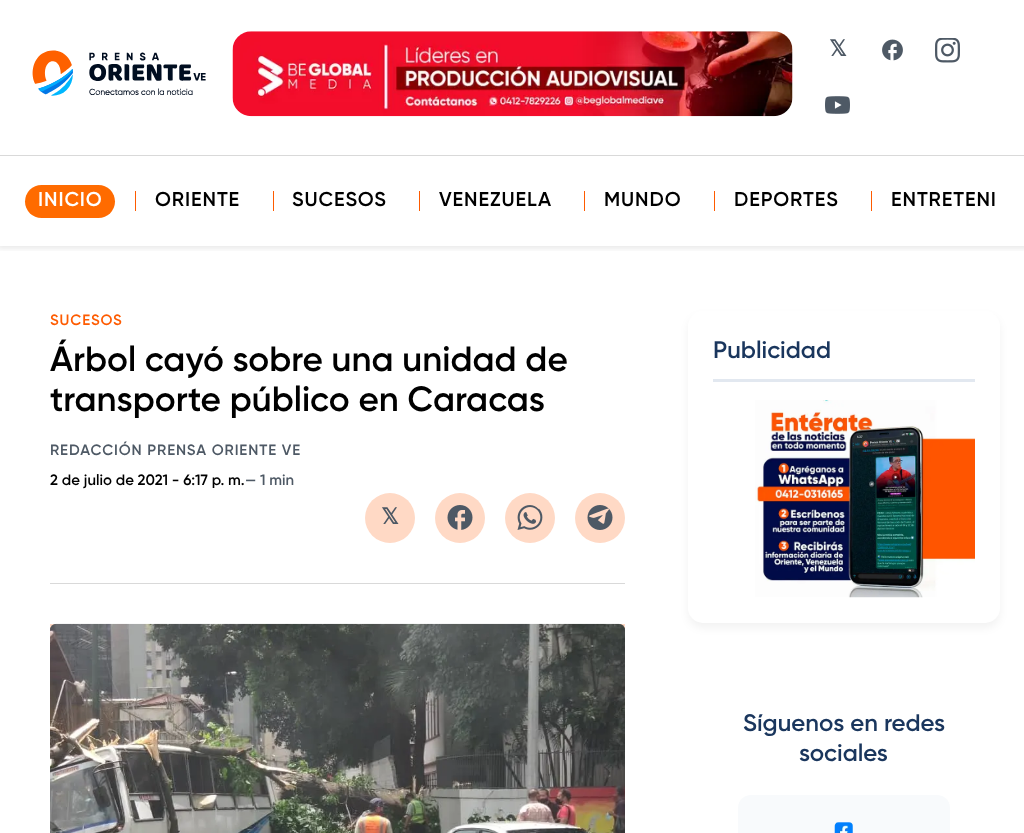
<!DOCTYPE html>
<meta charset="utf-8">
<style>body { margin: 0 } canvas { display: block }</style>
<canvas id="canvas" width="1024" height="833"></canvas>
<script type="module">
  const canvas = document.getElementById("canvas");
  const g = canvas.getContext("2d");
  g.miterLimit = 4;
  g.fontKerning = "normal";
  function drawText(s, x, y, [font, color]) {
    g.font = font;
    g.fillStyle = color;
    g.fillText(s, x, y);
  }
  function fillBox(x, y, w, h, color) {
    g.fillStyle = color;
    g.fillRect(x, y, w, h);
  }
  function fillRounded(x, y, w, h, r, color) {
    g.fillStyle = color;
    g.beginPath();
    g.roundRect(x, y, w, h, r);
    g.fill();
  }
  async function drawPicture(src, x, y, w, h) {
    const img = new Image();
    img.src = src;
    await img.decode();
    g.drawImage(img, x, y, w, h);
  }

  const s1 = ["bold 22px DejaVu Sans", "#4E5965"];
  const s2 = ["600 20px Gilroy", "#FFFFFF"];
  const s3 = ["600 20px Gilroy", "#000000"];
  const s4 = ["600 15px Gilroy", "#FE5B00"];
  const s5 = ["600 35px Gilroy", "#000000"];
  const s6 = ["600 15px Gilroy", "#4E5965"];
  const s7 = ["600 15px Gilroy", "#000000"];
  const s8 = ["600 24px Gilroy", "#1A365D"];

  fillBox(0, 0, 1024, 833, "#FFFFFF");
  g.save();
  g.beginPath();
  g.rect(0, 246, 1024, 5);
  g.clip();
  g.fillStyle = "rgba(0, 0, 0, 0.08)";
  g.filter = "blur(2.5px)";
  g.beginPath();
  g.rect(-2, -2, 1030, 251);
  g.fill();
  g.filter = "none";
  g.restore();
  fillBox(0, 155, 1024, 1, "#D9D9D9");
  await drawPicture("pic1.png", 232, 31, 561, 86);
  drawText("𝕏", 829, 56, s1);
  await drawPicture("pic2.png", 882, 39, 21, 22);
  await drawPicture("pic3.png", 935, 38, 25, 25);
  await drawPicture("pic4.png", 825, 96, 25, 18);
  await drawPicture("pic5.png", 32, 50, 174, 46);
  fillRounded(25, 185, 90, 33, 16.5, "#FF6B00");
  g.letterSpacing = "0.9px";
  drawText("INICIO", 38, 206, s2);
  fillBox(135, 191, 1, 20, "#FE5B00");
  drawText("ORIENTE", 155, 206, s3);
  fillBox(273, 191, 1, 20, "#FE5B00");
  drawText("SUCESOS", 292, 206, s3);
  fillBox(419, 191, 1, 20, "#FE5B00");
  drawText("VENEZUELA", 439, 206, s3);
  fillBox(584, 191, 1, 20, "#FE5B00");
  drawText("MUNDO", 604, 206, s3);
  fillBox(714, 191, 1, 20, "#FE5B00");
  drawText("DEPORTES", 734, 206, s3);
  fillBox(871, 191, 1, 20, "#FE5B00");
  drawText("ENTRETENI", 891, 206, s3);
  fillBox(50, 583, 575, 1, "#D9D9D9");
  drawText("SUCESOS", 50, 325, s4);
  g.letterSpacing = "0px";
  drawText("Árbol cayó sobre una unidad de", 50, 371, s5);
  drawText("transporte público en Caracas", 50, 411, s5);
  g.letterSpacing = "0.9px";
  drawText("REDACCIÓN PRENSA ORIENTE VE", 50, 455, s6);
  g.letterSpacing = "0px";
  drawText("2 de julio de 2021 - 6:17 p. m.", 50, 485, s7);
  drawText("— 1 min", 245, 485, s6);
  g.fillStyle = "#FFD9C5";
  g.beginPath();
  g.arc(390, 518, 25, 0, Math.PI * 2);
  g.fill();
  drawText("𝕏", 381, 524, s1);
  g.fillStyle = "#FFD9C5";
  g.beginPath();
  g.arc(460, 518, 25, 0, Math.PI * 2);
  g.fill();
  await drawPicture("pic6.png", 447, 505, 26, 25);
  g.beginPath();
  g.arc(530, 518, 25, 0, Math.PI * 2);
  g.fill();
  await drawPicture("pic7.png", 517, 505, 26, 25);
  g.beginPath();
  g.arc(600, 518, 25, 0, Math.PI * 2);
  g.fill();
  await drawPicture("pic8.png", 587, 505, 26, 25);
  fillBox(50, 624, 575, 6, "#FFD9C5");
  await drawPicture("pic9.png", 50, 623, 575, 210);
  g.fillStyle = "rgba(0, 0, 0, 0.05)";
  g.filter = "blur(4px)";
  g.beginPath();
  g.roundRect(688, 316, 312, 312, 15);
  g.fill();
  g.filter = "none";
  fillRounded(688, 311, 312, 312, 15, "#FFFFFF");
  fillBox(713, 379, 262, 3, "#E2E8F0");
  drawText("Publicidad", 713, 358, s8);
  await drawPicture("pic10.png", 755, 400, 220, 198);
  drawText("Síguenos en redes", 743, 731, s8);
  drawText("sociales", 799, 761, s8);
  fillRounded(738, 795, 212, 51, 13, "#F8FAFC");
  await drawPicture("pic11.png", 834, 822, 19, 11);
</script>
